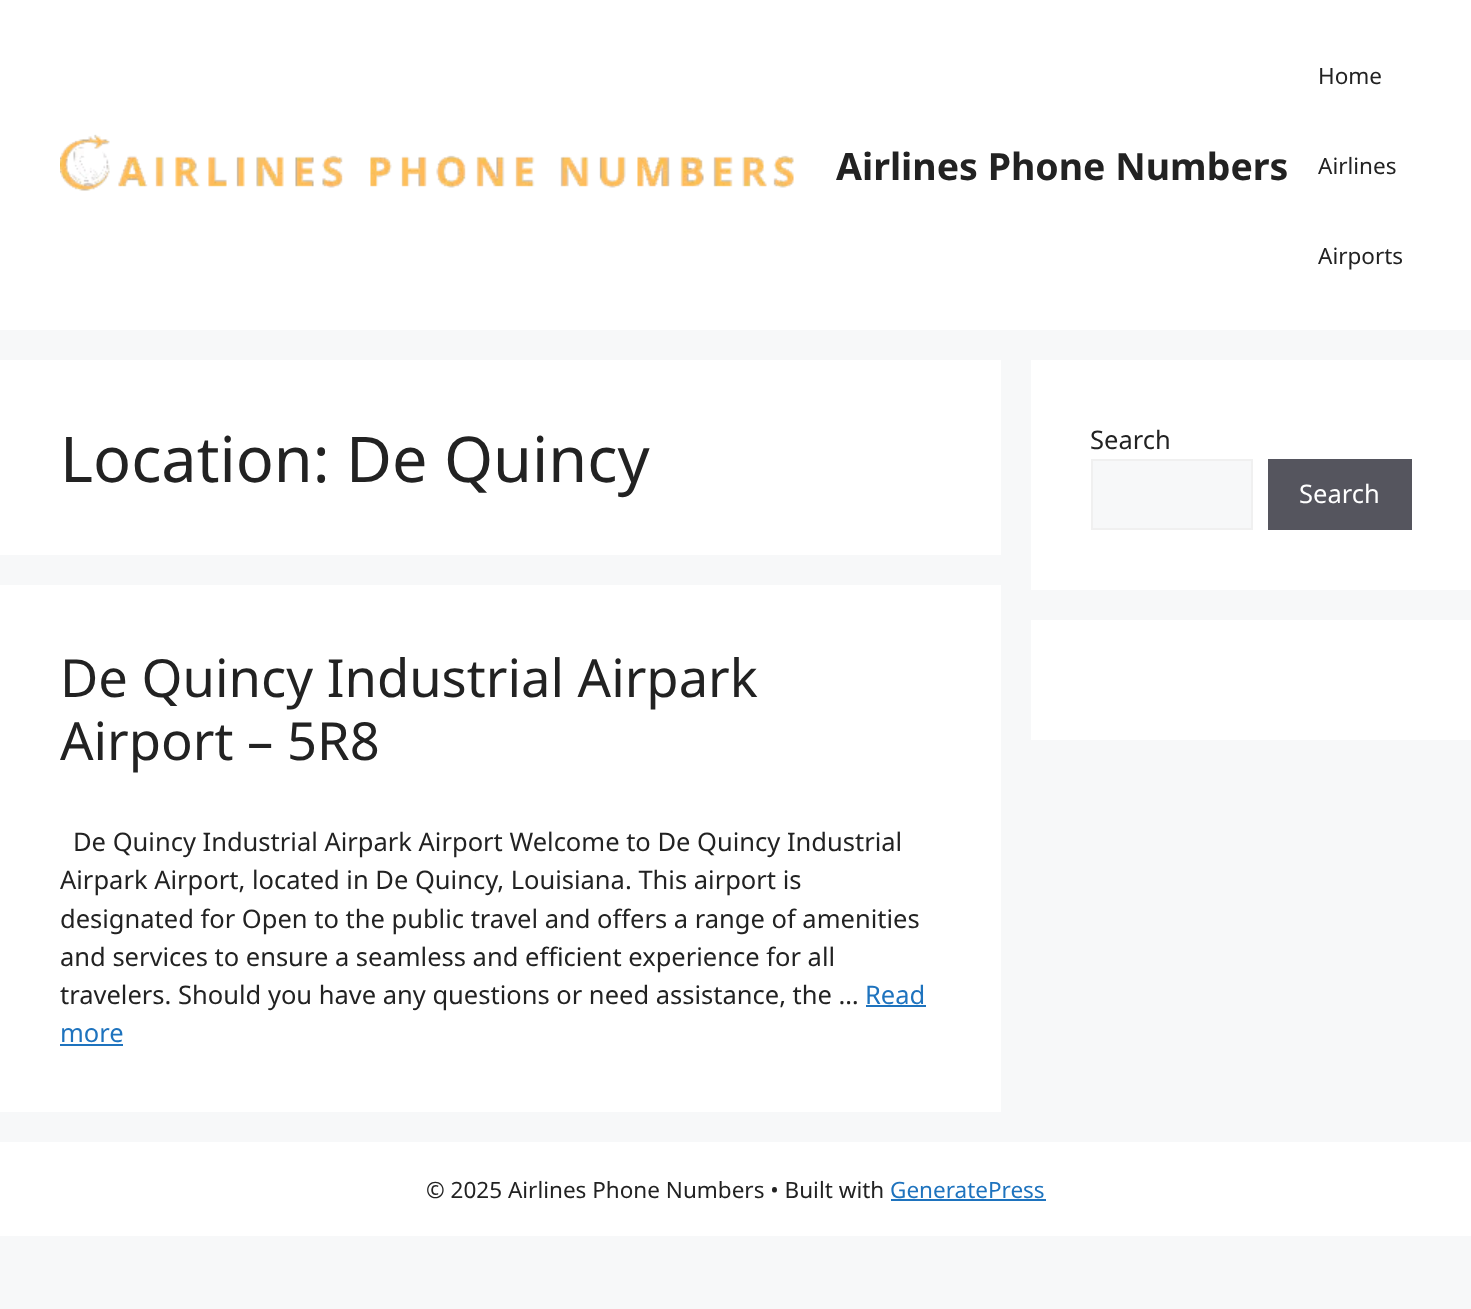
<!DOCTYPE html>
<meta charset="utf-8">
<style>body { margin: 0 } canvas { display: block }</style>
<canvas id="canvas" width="1471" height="1309"></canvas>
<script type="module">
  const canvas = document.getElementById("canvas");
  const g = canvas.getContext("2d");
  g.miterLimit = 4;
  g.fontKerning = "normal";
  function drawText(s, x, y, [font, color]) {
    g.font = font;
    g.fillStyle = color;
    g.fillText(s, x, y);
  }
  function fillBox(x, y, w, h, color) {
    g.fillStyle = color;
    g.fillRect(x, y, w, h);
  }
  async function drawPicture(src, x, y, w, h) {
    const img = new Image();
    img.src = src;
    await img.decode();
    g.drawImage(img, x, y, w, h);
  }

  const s1 = ["bold 37.5px Noto Sans", "#222222"];
  const s2 = ["22.5px Noto Sans", "#222222"];
  const s3 = ["63px Noto Sans", "#222222"];
  const s4 = ["52.5px Noto Sans", "#222222"];
  const s5 = ["25.5px Noto Sans", "#222222"];
  const s6 = ["25.5px Noto Sans", "#1E73BE"];
  const s7 = ["25.5px Noto Sans", "#FFFFFF"];
  const s8 = ["22.5px Noto Sans", "#1E73BE"];

  fillBox(0, 0, 1471, 1309, "#F7F8F9");
  fillBox(0, 0, 1471, 330, "#FFFFFF");
  await drawPicture("pic1.png", 60, 134, 734, 57);
  drawText("Airlines Phone Numbers", 836, 180, s1);
  drawText("Home", 1318, 84, s2);
  drawText("Airlines", 1318, 174, s2);
  drawText("Airports", 1318, 264, s2);
  fillBox(0, 360, 1001, 195, "#FFFFFF");
  drawText("Location: De Quincy", 60, 482, s3);
  fillBox(0, 585, 1001, 527, "#FFFFFF");
  drawText("De Quincy Industrial Airpark", 60, 697, s4);
  drawText("Airport – 5R8", 60, 760, s4);
  drawText("De Quincy Industrial Airpark Airport Welcome to De Quincy Industrial", 73, 851, s5);
  drawText("Airpark Airport, located in De Quincy, Louisiana. This airport is", 60, 889, s5);
  drawText("designated for Open to the public travel and offers a range of amenities", 60, 928, s5);
  drawText("and services to ensure a seamless and efficient experience for all", 60, 966, s5);
  drawText("travelers. Should you have any questions or need assistance, the …", 60, 1004, s5);
  drawText("Read", 865, 1004, s6);
  fillBox(866, 1005, 60, 2, "#1E73BE");
  drawText("more", 60, 1042, s6);
  fillBox(60, 1044, 63, 2, "#1E73BE");
  fillBox(1031, 360, 440, 230, "#FFFFFF");
  drawText("Search", 1090, 449, s5);
  g.fillStyle = "#F7F8F9";
  g.beginPath();
  g.rect(1092, 460, 160, 69);
  g.fill();
  g.strokeStyle = "#F0F0F0";
  g.lineWidth = 2;
  g.stroke();
  fillBox(1268, 459, 144, 71, "#55555E");
  drawText("Search", 1299, 503, s7);
  fillBox(1031, 620, 440, 120, "#FFFFFF");
  fillBox(0, 1142, 1471, 94, "#FFFFFF");
  drawText("© 2025 Airlines Phone Numbers • Built with", 426, 1198, s2);
  drawText("GeneratePress", 890, 1198, s8);
  fillBox(891, 1199, 155, 2, "#1E73BE");
</script>
